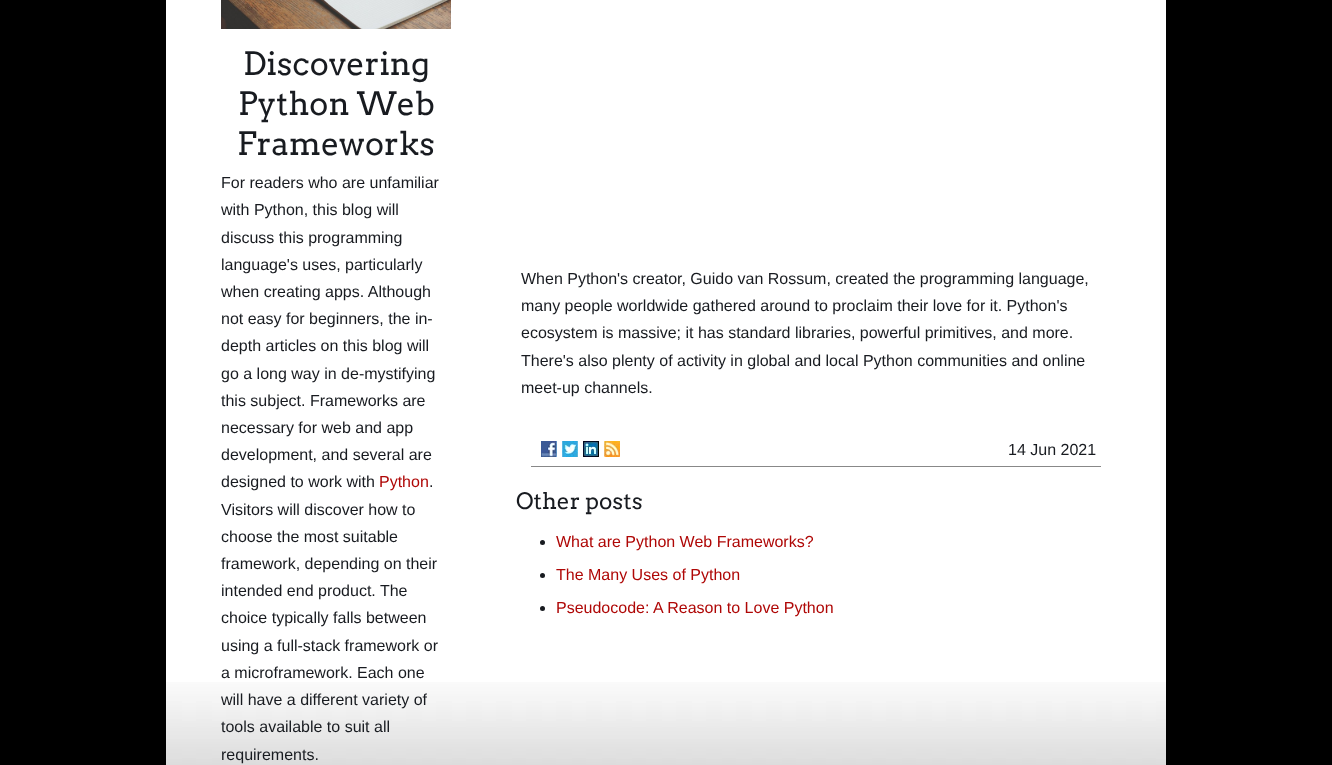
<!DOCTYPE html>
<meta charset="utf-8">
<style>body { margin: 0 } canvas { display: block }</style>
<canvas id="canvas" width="1332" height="765"></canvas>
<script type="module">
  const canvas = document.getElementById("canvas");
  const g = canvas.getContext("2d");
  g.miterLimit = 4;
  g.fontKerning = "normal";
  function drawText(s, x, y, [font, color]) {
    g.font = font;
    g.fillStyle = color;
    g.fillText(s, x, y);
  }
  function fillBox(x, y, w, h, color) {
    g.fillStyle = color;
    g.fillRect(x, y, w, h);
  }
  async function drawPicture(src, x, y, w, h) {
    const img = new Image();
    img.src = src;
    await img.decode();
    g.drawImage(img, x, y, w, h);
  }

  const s1 = ["32px Arvo", "#181B20"];
  const s2 = ["16px Liberation Sans", "#181B20"];
  const s3 = ["16px Liberation Sans", "#AF0706"];
  const s4 = ["22.5px Arvo", "#181B20"];

  fillBox(0, 0, 1332, 765, "#000000");
  fillBox(166, 0, 1000, 682, "#FFFFFF");
  await drawPicture("pic1.png", 166, 682, 1000, 83);
  await drawPicture("pic2.png", 221, 0, 230, 29);
  drawText("Discovering", 243, 75, s1);
  drawText("Python Web", 238, 115, s1);
  drawText("Frameworks", 237, 155, s1);
  drawText("For readers who are unfamiliar", 221, 188, s2);
  drawText("with Python, this blog will", 221, 215, s2);
  drawText("discuss this programming", 221, 243, s2);
  drawText("language's uses, particularly", 221, 270, s2);
  drawText("when creating apps. Although", 221, 297, s2);
  drawText("not easy for beginners, the in-", 221, 324, s2);
  drawText("depth articles on this blog will", 221, 351, s2);
  drawText("go a long way in de-mystifying", 221, 379, s2);
  drawText("this subject. Frameworks are", 221, 406, s2);
  drawText("necessary for web and app", 221, 433, s2);
  drawText("development, and several are", 221, 460, s2);
  drawText("designed to work with", 221, 487, s2);
  drawText("Python", 379, 487, s3);
  drawText(".", 429, 487, s2);
  drawText("Visitors will discover how to", 221, 515, s2);
  drawText("choose the most suitable", 221, 542, s2);
  drawText("framework, depending on their", 221, 569, s2);
  drawText("intended end product. The", 221, 596, s2);
  drawText("choice typically falls between", 221, 623, s2);
  drawText("using a full-stack framework or", 221, 651, s2);
  drawText("a microframework. Each one", 221, 678, s2);
  drawText("will have a different variety of", 221, 705, s2);
  drawText("tools available to suit all", 221, 732, s2);
  drawText("requirements.", 221, 760, s2);
  drawText("When Python's creator, Guido van Rossum, created the programming language,", 521, 284, s2);
  drawText("many people worldwide gathered around to proclaim their love for it. Python's", 521, 311, s2);
  drawText("ecosystem is massive; it has standard libraries, powerful primitives, and more.", 521, 338, s2);
  drawText("There's also plenty of activity in global and local Python communities and online", 521, 366, s2);
  drawText("meet-up channels.", 521, 393, s2);
  await drawPicture("pic3.png", 541, 441, 16, 16);
  await drawPicture("pic4.png", 562, 441, 16, 16);
  await drawPicture("pic5.png", 583, 441, 16, 16);
  await drawPicture("pic6.png", 604, 441, 16, 16);
  drawText("14 Jun 2021", 1008, 455, s2);
  fillBox(531, 466, 570, 1, "#888888");
  drawText("Other posts", 516, 509, s4);
  g.beginPath();
  g.arc(542.5, 542.5, 2.5, 0, Math.PI * 2);
  g.fill();
  drawText("What are Python Web Frameworks?", 556, 547, s3);
  g.fillStyle = "#181B20";
  g.beginPath();
  g.arc(542.5, 575.5, 2.5, 0, Math.PI * 2);
  g.fill();
  drawText("The Many Uses of Python", 556, 580, s3);
  g.fillStyle = "#181B20";
  g.beginPath();
  g.arc(542.5, 608.5, 2.5, 0, Math.PI * 2);
  g.fill();
  drawText("Pseudocode: A Reason to Love Python", 556, 613, s3);
</script>
